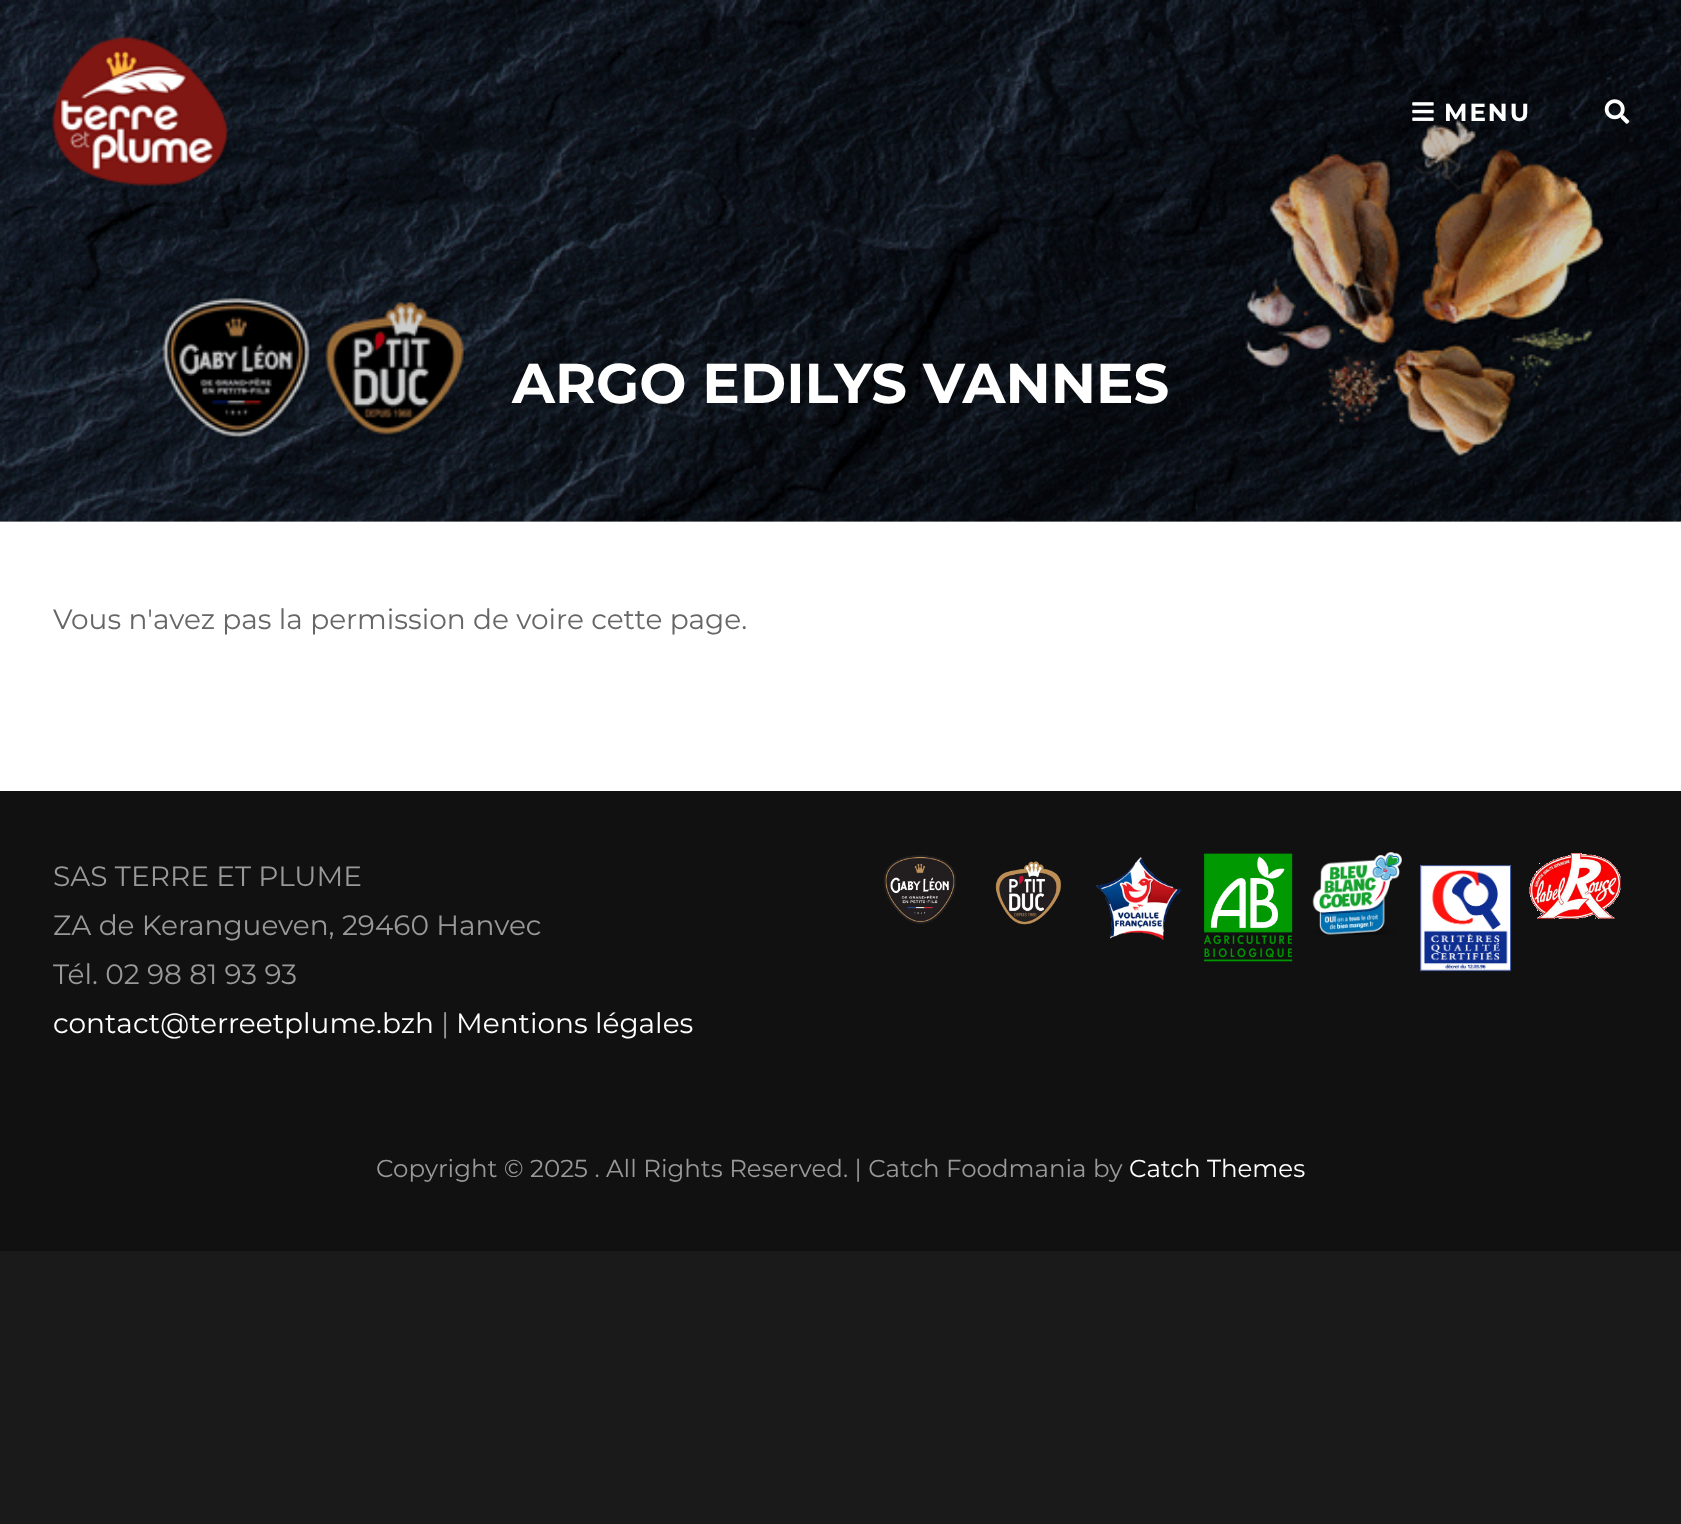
<!DOCTYPE html>
<meta charset="utf-8">
<style>body { margin: 0 } canvas { display: block }</style>
<canvas id="canvas" width="1681" height="1524"></canvas>
<script type="module">
  const canvas = document.getElementById("canvas");
  const g = canvas.getContext("2d");
  g.miterLimit = 4;
  g.fontKerning = "normal";
  function drawText(s, x, y, [font, color]) {
    g.font = font;
    g.fillStyle = color;
    g.fillText(s, x, y);
  }
  function fillBox(x, y, w, h, color) {
    g.fillStyle = color;
    g.fillRect(x, y, w, h);
  }
  async function drawPicture(src, x, y, w, h) {
    const img = new Image();
    img.src = src;
    await img.decode();
    g.drawImage(img, x, y, w, h);
  }

  const s1 = ["bold 24.5px Montserrat", "#FFFFFF"];
  const s2 = ["bold 56px Montserrat", "#FFFFFF"];
  const s3 = ["28px Montserrat", "#666666"];
  const s4 = ["28px Montserrat", "#999999"];
  const s5 = ["28px Montserrat", "#FFFFFF"];
  const s6 = ["24.5px Montserrat", "#999999"];
  const s7 = ["24.5px Montserrat", "#FFFFFF"];

  fillBox(0, 0, 1681, 1524, "#1A1A1A");
  fillBox(0, 522, 1681, 269, "#FFFFFF");
  fillBox(0, 521, 1681, 1, "#C8C8C8");
  await drawPicture("pic4.png", 0, 0, 1681, 522);
  await drawPicture("pic1.png", 52, 36, 176, 150);
  await drawPicture("pic2.png", 1412, 102, 22, 19);
  g.letterSpacing = "2px";
  drawText("MENU", 1444, 121, s1);
  await drawPicture("pic3.png", 1604, 99, 26, 25);
  g.letterSpacing = "0px";
  drawText("ARGO EDILYS VANNES", 512, 403, s2);
  drawText("Vous n'avez pas la permission de voire cette page.", 53, 629, s3);
  fillBox(0, 791, 1681, 460, "#111111");
  drawText("SAS TERRE ET PLUME", 53, 886, s4);
  drawText("ZA de Kerangueven, 29460 Hanvec", 53, 935, s4);
  drawText("Tél. 02 98 81 93 93", 53, 984, s4);
  drawText("contact@terreetplume.bzh", 53, 1033, s5);
  drawText("|", 441, 1033, s4);
  drawText("Mentions légales", 456, 1033, s5);
  await drawPicture("pic5.png", 883, 855, 73, 69);
  await drawPicture("pic6.png", 995, 861, 66, 64);
  await drawPicture("pic7.png", 1095, 857, 87, 83);
  await drawPicture("pic8.png", 1203, 853, 90, 109);
  await drawPicture("pic9.png", 1312, 852, 90, 83);
  await drawPicture("pic10.png", 1420, 865, 92, 107);
  await drawPicture("pic11.png", 1529, 853, 92, 66);
  drawText("Copyright © 2025 . All Rights Reserved. | Catch Foodmania by", 376, 1177, s6);
  drawText("Catch Themes", 1129, 1177, s7);
</script>
